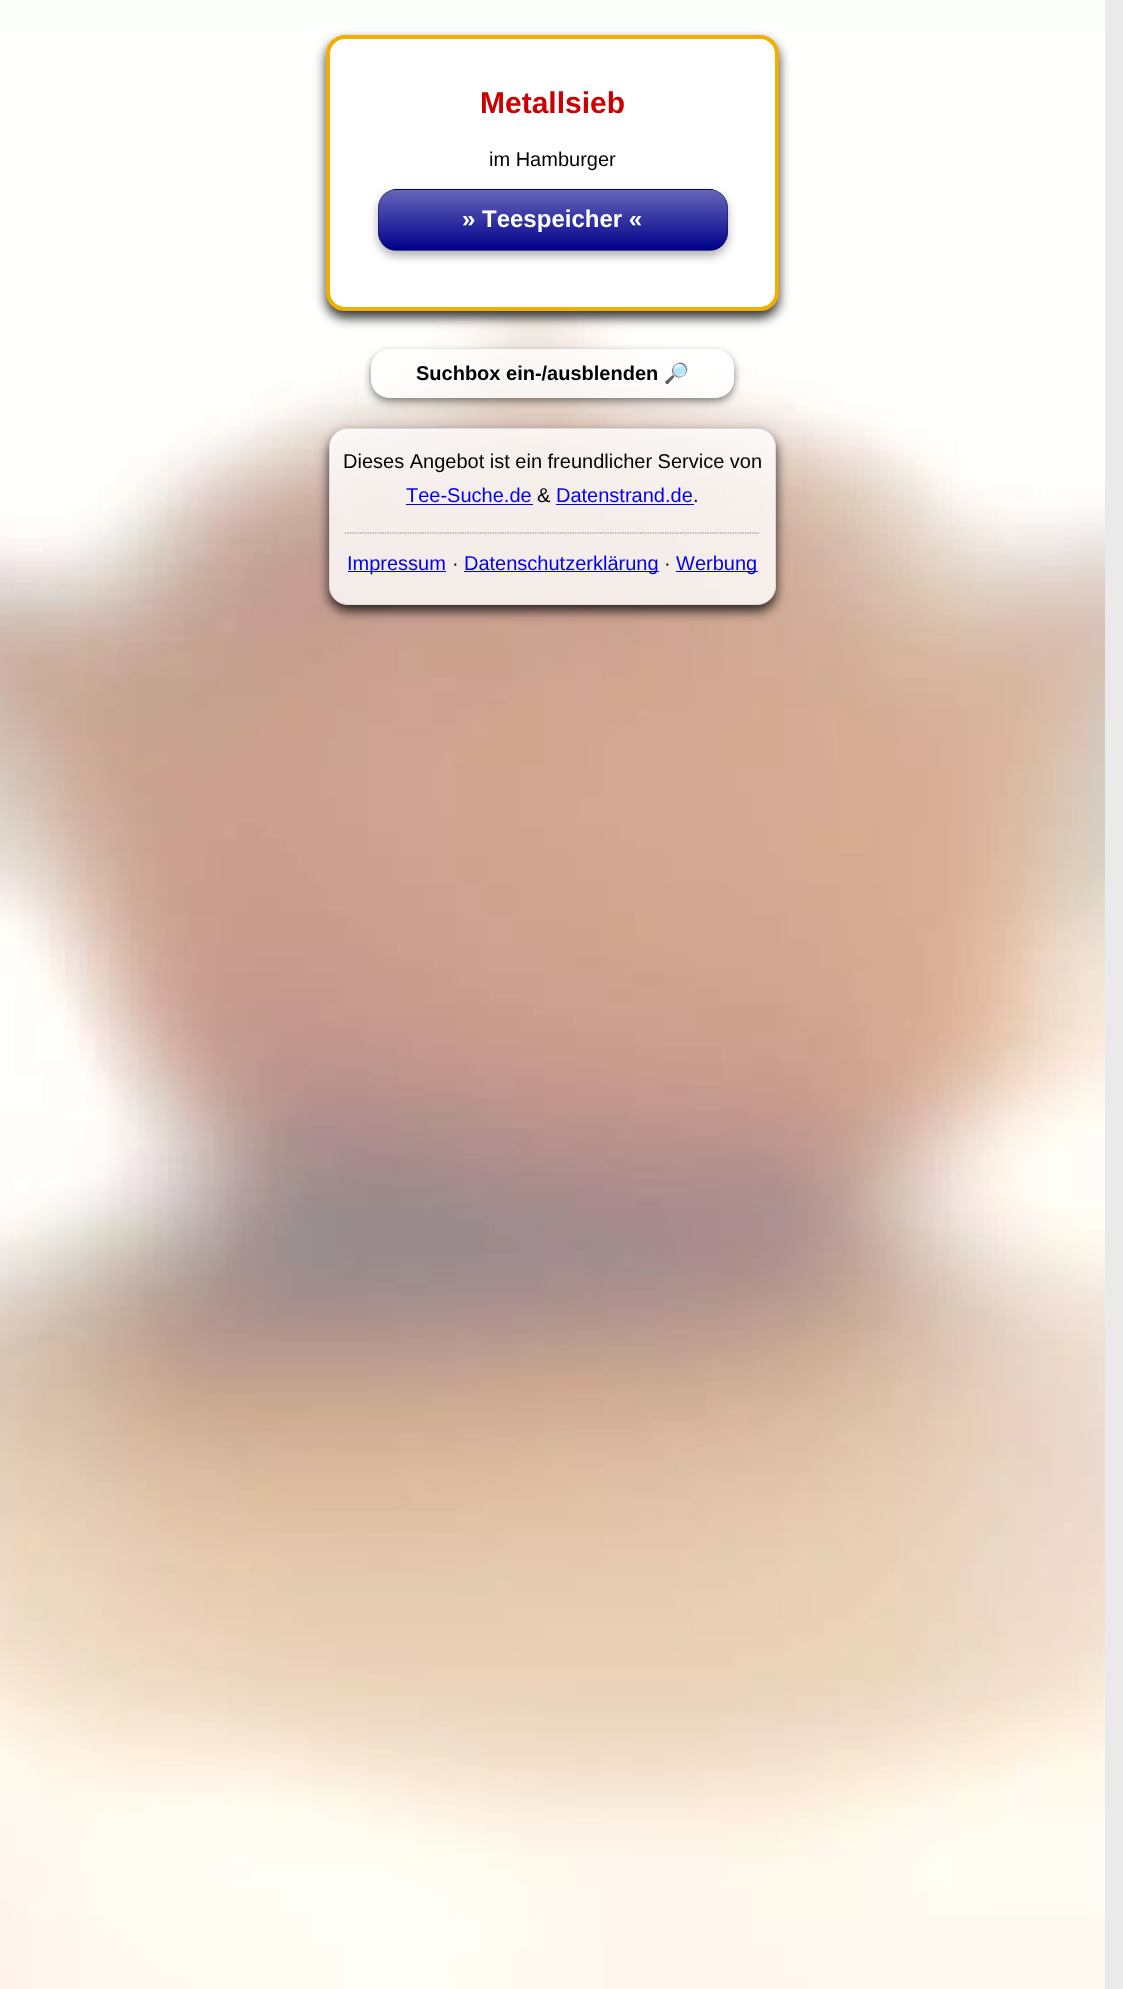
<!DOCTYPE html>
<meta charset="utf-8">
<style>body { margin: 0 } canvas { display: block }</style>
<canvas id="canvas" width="1123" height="1989"></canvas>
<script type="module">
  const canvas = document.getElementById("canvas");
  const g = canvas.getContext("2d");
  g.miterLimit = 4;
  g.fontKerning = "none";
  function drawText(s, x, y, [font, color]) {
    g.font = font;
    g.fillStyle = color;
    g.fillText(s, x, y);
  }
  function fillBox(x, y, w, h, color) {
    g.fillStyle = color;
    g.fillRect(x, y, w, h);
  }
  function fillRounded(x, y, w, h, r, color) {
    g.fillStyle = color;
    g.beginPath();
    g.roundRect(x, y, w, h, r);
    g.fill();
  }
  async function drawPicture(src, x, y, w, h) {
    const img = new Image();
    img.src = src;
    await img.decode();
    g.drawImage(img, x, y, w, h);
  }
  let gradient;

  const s1 = ["bold 30px Liberation Sans", "#CC0000"];
  const s2 = ["20px Liberation Sans", "#000000"];
  const s3 = ["bold 24px Liberation Sans", "#FFFFFF"];
  const s4 = ["bold 20px Liberation Sans", "#000000"];
  const s5 = ["bold 20px Noto Color Emoji", "#191919"];
  const s6 = ["20px Liberation Sans", "#0000EE"];

  fillBox(0, 0, 1123, 1989, "#EAEAEA");
  await drawPicture("pic1.png", 0, 0, 1105, 1989);
  g.fillStyle = "rgba(0, 0, 0, 0.8)";
  g.filter = "blur(6px)";
  g.beginPath();
  g.roundRect(326, 41, 453, 277, 19);
  g.fill();
  g.filter = "none";
  g.fillStyle = "#FFFFFF";
  g.beginPath();
  g.roundRect(328, 37, 449, 272, 17);
  g.fill();
  g.strokeStyle = "#F0B000";
  g.lineWidth = 4;
  g.stroke();
  drawText("Metallsieb", 480, 113, s1);
  drawText("im Hamburger", 489, 166, s2);
  g.fillStyle = "rgba(0, 0, 0, 0.3)";
  g.filter = "blur(5px)";
  g.beginPath();
  g.roundRect(378, 194, 350, 62, 19);
  g.fill();
  g.filter = "none";
  fillRounded(378, 189, 350, 62, 19, "#00008B");
  g.save();
  g.beginPath();
  g.roundRect(378, 189, 350, 62, 19);
  g.clip();
  gradient = g.createLinearGradient(553, 190, 553, 250);
  gradient.addColorStop(0, "rgba(255, 255, 255, 0.4)");
  gradient.addColorStop(1, "rgba(255, 255, 255, 0)");
  g.fillStyle = gradient;
  g.fillRect(378, 190, 350, 57);
  gradient = g.createLinearGradient(553, 250, 553, 310);
  gradient.addColorStop(0, "rgba(255, 255, 255, 0.4)");
  gradient.addColorStop(1, "rgba(255, 255, 255, 0)");
  g.fillStyle = gradient;
  g.fillRect(391, 250, 324, 1);
  g.restore();
  g.beginPath();
  g.roundRect(378.5, 189.5, 349, 61, 18.5);
  g.strokeStyle = "rgba(0, 0, 0, 0.3)";
  g.lineWidth = 1;
  g.stroke();
  drawText("» Teespeicher «", 462, 227, s3);
  g.save();
  g.beginPath();
  g.moveTo(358, 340);
  g.lineTo(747, 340);
  g.lineTo(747, 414);
  g.lineTo(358, 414);
  g.closePath();
  g.moveTo(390, 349);
  g.lineTo(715, 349);
  g.bezierCurveTo(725.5, 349, 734, 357.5, 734, 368);
  g.lineTo(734, 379);
  g.bezierCurveTo(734, 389.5, 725.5, 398, 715, 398);
  g.lineTo(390, 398);
  g.bezierCurveTo(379.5, 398, 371, 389.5, 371, 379);
  g.lineTo(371, 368);
  g.bezierCurveTo(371, 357.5, 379.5, 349, 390, 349);
  g.closePath();
  g.clip("evenodd");
  g.fillStyle = "rgba(0, 0, 0, 0.5)";
  g.filter = "blur(4px)";
  g.beginPath();
  g.roundRect(371, 353, 363, 48, 19);
  g.fill();
  g.filter = "none";
  g.restore();
  fillRounded(371, 349, 363, 49, 19, "rgba(255, 255, 255, 0.73)");
  drawText("Suchbox ein-/ausblenden", 416, 380, s4);
  drawText("🔎", 664, 380, s5);
  g.save();
  g.beginPath();
  g.moveTo(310, 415);
  g.lineTo(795, 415);
  g.lineTo(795, 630);
  g.lineTo(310, 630);
  g.closePath();
  g.moveTo(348, 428);
  g.lineTo(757, 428);
  g.bezierCurveTo(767.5, 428, 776, 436.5, 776, 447);
  g.lineTo(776, 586);
  g.bezierCurveTo(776, 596.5, 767.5, 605, 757, 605);
  g.lineTo(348, 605);
  g.bezierCurveTo(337.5, 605, 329, 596.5, 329, 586);
  g.lineTo(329, 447);
  g.bezierCurveTo(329, 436.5, 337.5, 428, 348, 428);
  g.closePath();
  g.clip("evenodd");
  g.fillStyle = "rgba(0, 0, 0, 0.8)";
  g.filter = "blur(6px)";
  g.beginPath();
  g.roundRect(329, 434, 447, 177, 19);
  g.fill();
  g.filter = "none";
  g.restore();
  g.fillStyle = "rgba(255, 255, 255, 0.8)";
  g.beginPath();
  g.roundRect(329.5, 428.5, 446, 176, 18.5);
  g.fill();
  g.strokeStyle = "#DCDCDC";
  g.stroke();
  drawText("Dieses Angebot ist ein freundlicher Service von", 343, 468, s2);
  drawText("Tee-Suche.de", 406, 502, s6);
  fillBox(406, 504, 127, 1, "#0000EE");
  drawText("&", 537, 502, s2);
  drawText("Datenstrand.de", 556, 502, s6);
  fillBox(556, 504, 138, 1, "#0000EE");
  drawText(".", 693, 502, s2);
  g.beginPath();
  g.moveTo(345, 533);
  g.lineTo(760, 533);
  g.strokeStyle = "#808080";
  g.lineWidth = 1.2;
  g.setLineDash([1.25, 1.25]);
  g.stroke();
  fillBox(348, 571, 98, 1, "#0000EE");
  drawText("Impressum", 347, 570, s6);
  drawText("·", 452, 570, s2);
  fillBox(464, 571, 195, 1, "#0000EE");
  drawText("Datenschutzerklärung", 464, 570, s6);
  drawText("·", 664, 570, s2);
  fillBox(676, 571, 82, 1, "#0000EE");
  drawText("Werbung", 676, 570, s6);
</script>
